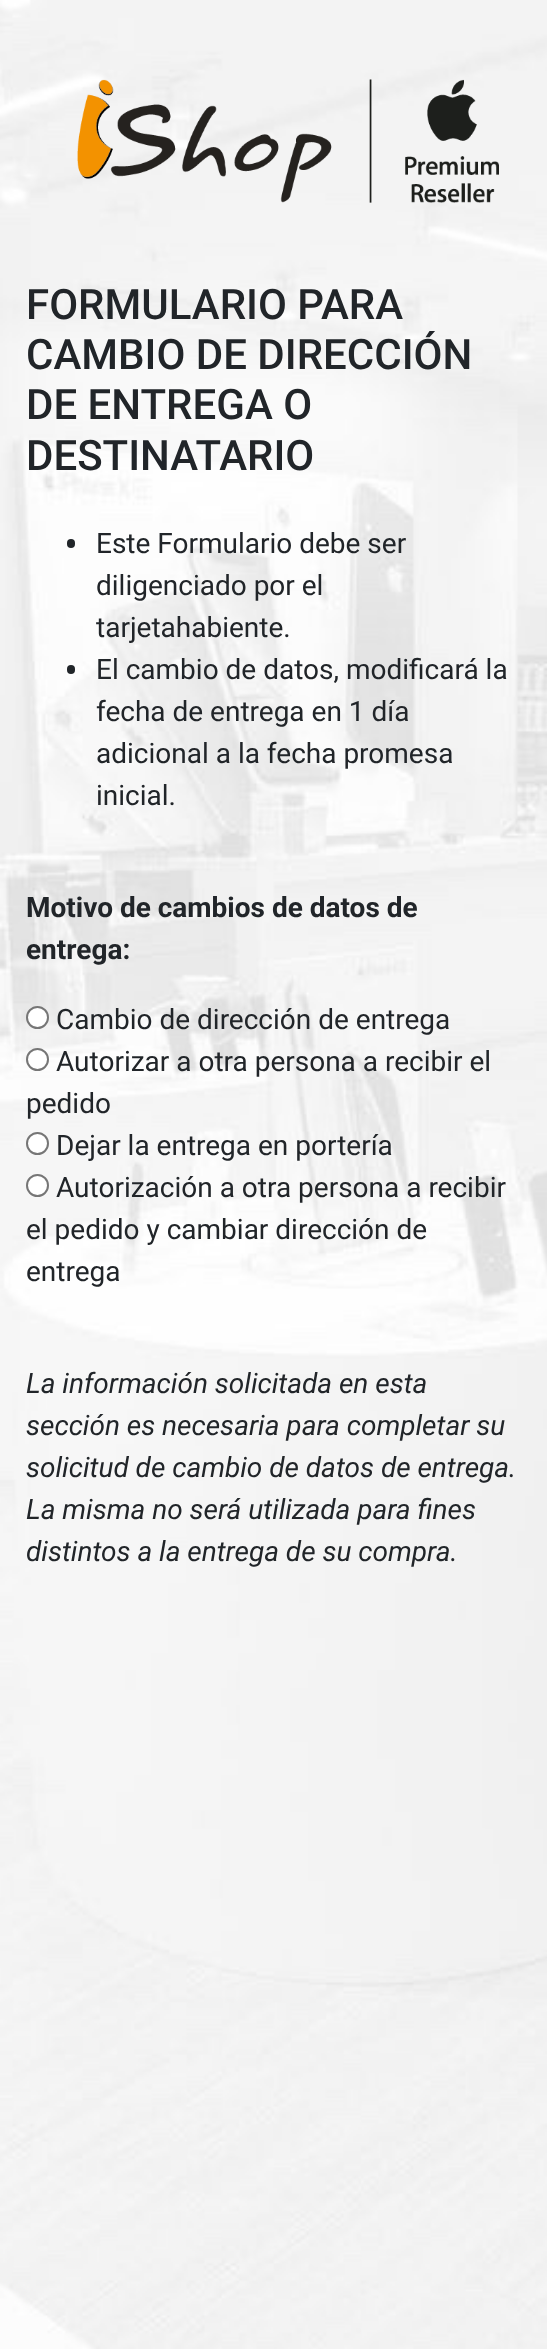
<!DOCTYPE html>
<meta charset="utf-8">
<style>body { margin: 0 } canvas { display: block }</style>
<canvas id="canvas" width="547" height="2349"></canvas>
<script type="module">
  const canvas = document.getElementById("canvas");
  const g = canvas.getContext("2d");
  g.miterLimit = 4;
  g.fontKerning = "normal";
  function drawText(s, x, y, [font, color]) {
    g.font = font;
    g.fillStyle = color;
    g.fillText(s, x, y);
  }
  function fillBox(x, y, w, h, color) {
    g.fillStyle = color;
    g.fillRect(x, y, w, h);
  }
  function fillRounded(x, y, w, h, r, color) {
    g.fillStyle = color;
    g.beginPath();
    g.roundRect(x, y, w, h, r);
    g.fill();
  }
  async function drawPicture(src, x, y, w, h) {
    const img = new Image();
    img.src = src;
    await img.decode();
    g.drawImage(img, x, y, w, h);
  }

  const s1 = ["500 42px Roboto", "#212529"];
  const s2 = ["28px Roboto", "#212529"];
  const s3 = ["bold 28px Roboto", "#212529"];
  const s4 = ["italic 28px Roboto", "#212529"];

  fillBox(0, 0, 547, 2349, "#FFFFFF");
  await drawPicture("pic1.png", 0, 0, 547, 2349);
  await drawPicture("pic2.png", 77, 79, 422, 124);
  drawText("FORMULARIO PARA", 26, 319, s1);
  drawText("CAMBIO DE DIRECCIÓN", 26, 369, s1);
  drawText("DE ENTREGA O", 26, 419, s1);
  drawText("DESTINATARIO", 26, 470, s1);
  fillRounded(67, 539, 8, 9, 4, "#212529");
  drawText("Este Formulario debe ser", 96, 553, s2);
  drawText("diligenciado por el", 96, 595, s2);
  drawText("tarjetahabiente.", 96, 637, s2);
  fillRounded(67, 665, 8, 9, 4, "#212529");
  drawText("El cambio de datos, modificará la", 96, 679, s2);
  drawText("fecha de entrega en 1 día", 96, 721, s2);
  drawText("adicional a la fecha promesa", 96, 763, s2);
  drawText("inicial.", 96, 805, s2);
  drawText("Motivo de cambios de datos de", 26, 917, s3);
  drawText("entrega:", 26, 959, s3);
  g.fillStyle = "#FFFFFF";
  g.beginPath();
  g.arc(37.5, 1017.5, 10.5, 0, Math.PI * 2);
  g.fill();
  g.strokeStyle = "#767676";
  g.lineWidth = 2;
  g.stroke();
  drawText("Cambio de dirección de entrega", 56, 1029, s2);
  g.fillStyle = "#FFFFFF";
  g.beginPath();
  g.arc(37.5, 1059.5, 10.5, 0, Math.PI * 2);
  g.fill();
  g.stroke();
  drawText("Autorizar a otra persona a recibir el", 56, 1071, s2);
  drawText("pedido", 26, 1113, s2);
  g.fillStyle = "#FFFFFF";
  g.beginPath();
  g.arc(37.5, 1143.5, 10.5, 0, Math.PI * 2);
  g.fill();
  g.stroke();
  drawText("Dejar la entrega en portería", 56, 1155, s2);
  g.fillStyle = "#FFFFFF";
  g.beginPath();
  g.arc(37.5, 1185.5, 10.5, 0, Math.PI * 2);
  g.fill();
  g.stroke();
  drawText("Autorización a otra persona a recibir", 56, 1197, s2);
  drawText("el pedido y cambiar dirección de", 26, 1239, s2);
  drawText("entrega", 26, 1281, s2);
  drawText("La información solicitada en esta", 26, 1393, s4);
  drawText("sección es necesaria para completar su", 26, 1435, s4);
  drawText("solicitud de cambio de datos de entrega.", 26, 1477, s4);
  drawText("La misma no será utilizada para fines", 26, 1519, s4);
  drawText("distintos a la entrega de su compra.", 26, 1561, s4);
</script>
